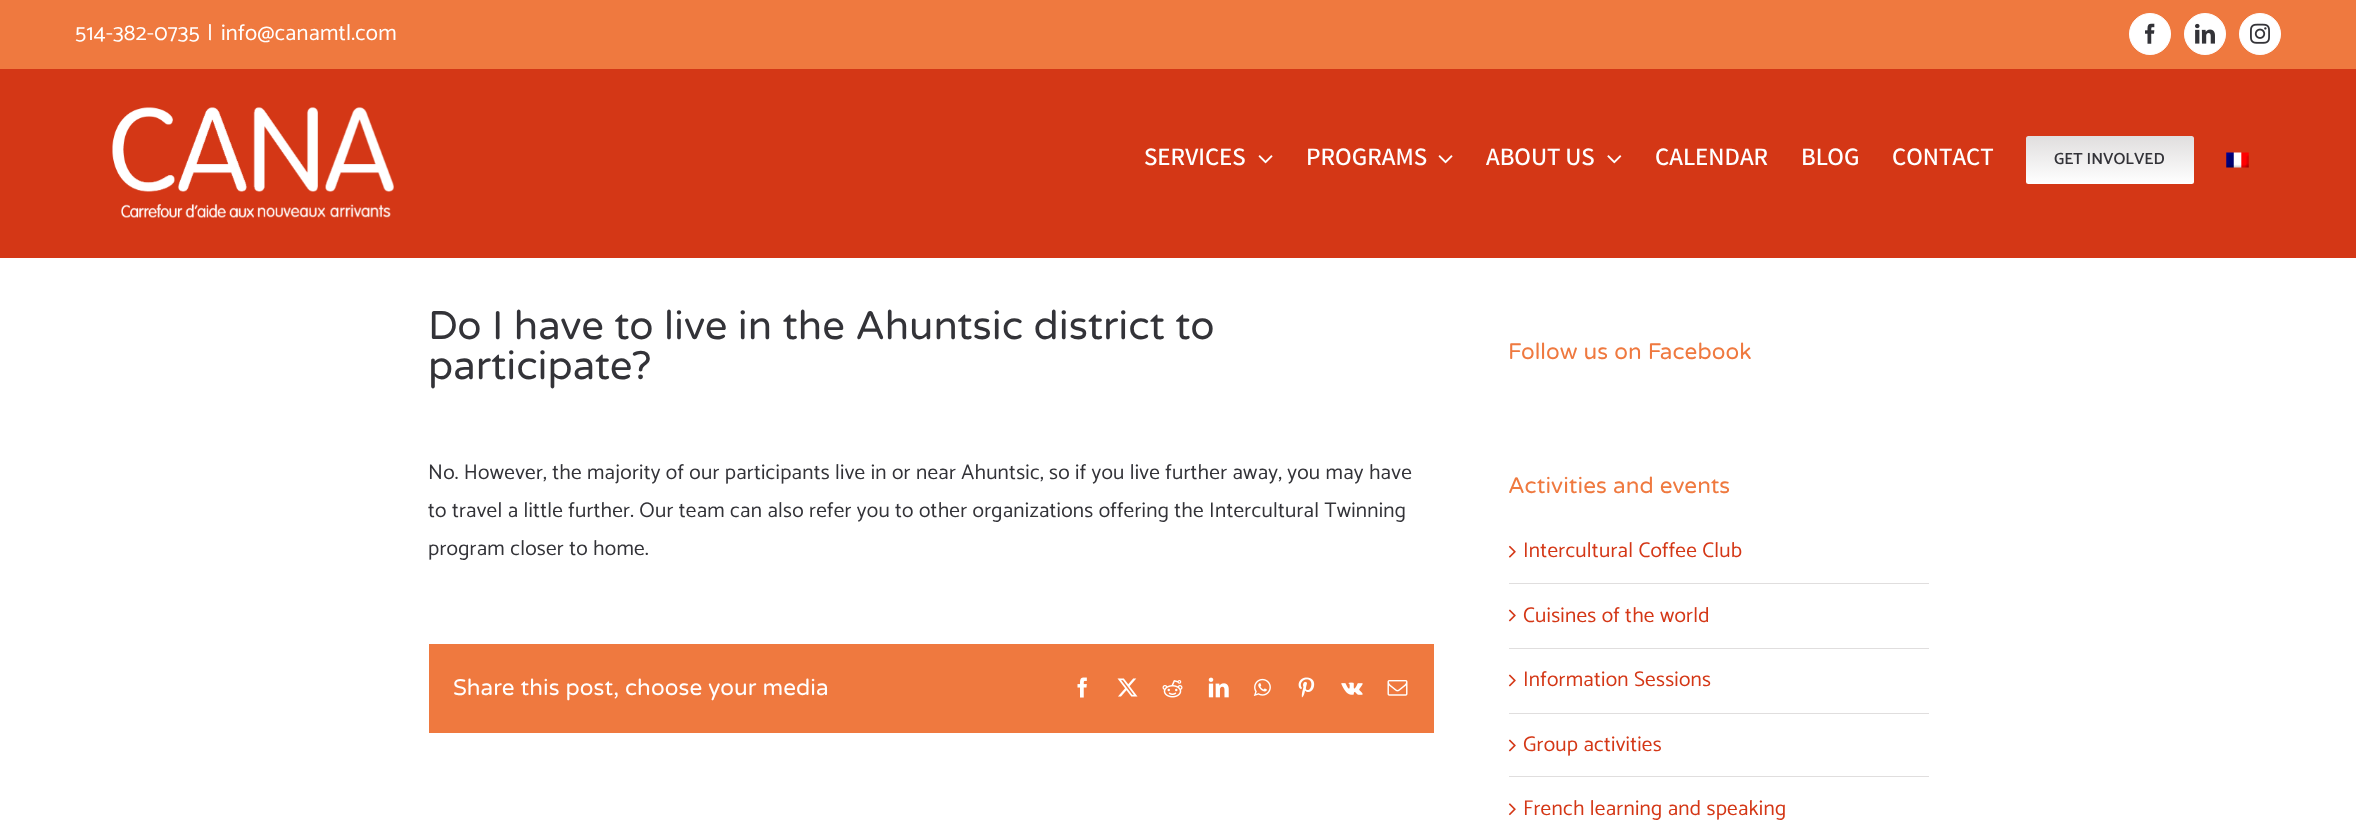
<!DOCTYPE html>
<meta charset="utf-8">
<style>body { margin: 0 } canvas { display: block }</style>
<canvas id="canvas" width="2356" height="829"></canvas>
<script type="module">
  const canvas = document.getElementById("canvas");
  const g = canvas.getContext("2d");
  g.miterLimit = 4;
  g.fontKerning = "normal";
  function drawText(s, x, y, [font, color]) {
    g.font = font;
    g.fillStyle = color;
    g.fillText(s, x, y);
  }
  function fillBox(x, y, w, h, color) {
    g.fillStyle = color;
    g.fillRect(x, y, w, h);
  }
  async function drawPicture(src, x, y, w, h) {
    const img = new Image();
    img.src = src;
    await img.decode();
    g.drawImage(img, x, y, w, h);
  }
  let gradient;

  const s1 = ["22.5px Catamaran", "#FFFFFF"];
  const s2 = ["600 25px Varta", "#FFFFFF"];
  const s3 = ["600 16.25px Catamaran", "#333338"];
  const s4 = ["40px Varela Round", "#333338"];
  const s5 = ["21.25px Catamaran", "#333338"];
  const s6 = ["22.5px Varela Round", "#FFFFFF"];
  const s7 = ["22.5px Varela Round", "#EF793F"];
  const s8 = ["21.25px Catamaran", "#D43716"];

  fillBox(0, 0, 2356, 829, "#FFFFFF");
  fillBox(0, 0, 2356, 69, "#EF793F");
  g.letterSpacing = "0.25px";
  drawText("514-382-0735", 75, 40, s1);
  drawText("|", 207, 40, s1);
  drawText("info@canamtl.com", 221, 40, s1);
  g.beginPath();
  g.arc(2150, 34, 20.5, 0, Math.PI * 2);
  g.fill();
  g.strokeStyle = "#FFFFFF";
  g.stroke();
  await drawPicture("pic1.png", 2145, 23, 10, 21);
  g.beginPath();
  g.arc(2205, 34, 20.5, 0, Math.PI * 2);
  g.fill();
  g.stroke();
  await drawPicture("pic2.png", 2195, 23, 20, 21);
  g.beginPath();
  g.arc(2260, 34, 20.5, 0, Math.PI * 2);
  g.fill();
  g.stroke();
  await drawPicture("pic3.png", 2250, 23, 20, 21);
  fillBox(0, 69, 2356, 189, "#D43716");
  await drawPicture("pic4.png", 112, 107, 282, 111);
  g.letterSpacing = "0px";
  drawText("SERVICES", 1144, 165, s2);
  await drawPicture("pic5.png", 1258, 155, 15, 9);
  drawText("PROGRAMS", 1306, 165, s2);
  await drawPicture("pic5.png", 1438, 155, 15, 9);
  drawText("ABOUT US", 1486, 165, s2);
  await drawPicture("pic6.png", 1607, 155, 15, 9);
  drawText("CALENDAR", 1655, 165, s2);
  drawText("BLOG", 1801, 165, s2);
  drawText("CONTACT", 1892, 165, s2);
  gradient = g.createLinearGradient(2110, 136, 2110, 184);
  gradient.addColorStop(0, "#E0DEDE");
  gradient.addColorStop(1, "#FFFFFF");
  g.fillStyle = gradient;
  g.beginPath();
  g.roundRect(2026, 136, 168, 48, 2.5);
  g.fill();
  drawText("GET INVOLVED", 2054, 164, s3);
  await drawPicture("pic7.png", 2226, 152, 23, 16);
  drawText("Do I have to live in the Ahuntsic district to", 428, 339, s4);
  drawText("participate?", 428, 379, s4);
  g.letterSpacing = "0.25px";
  drawText("No. However, the majority of our participants live in or near Ahuntsic, so if you live further away, you may have", 428, 479, s5);
  drawText("to travel a little further. Our team can also refer you to other organizations offering the Intercultural Twinning", 428, 517, s5);
  drawText("program closer to home.", 428, 555, s5);
  fillBox(429, 644, 1005, 89, "#EF793F");
  g.letterSpacing = "0.1px";
  drawText("Share this post, choose your media", 453, 695, s6);
  await drawPicture("pic8.png", 1077, 677, 10, 21);
  await drawPicture("pic9.png", 1117, 678, 21, 19);
  await drawPicture("pic10.png", 1162, 680, 21, 18);
  await drawPicture("pic11.png", 1208, 677, 21, 21);
  await drawPicture("pic12.png", 1253, 678, 18, 18);
  await drawPicture("pic13.png", 1298, 677, 17, 21);
  await drawPicture("pic14.png", 1341, 682, 22, 13);
  await drawPicture("pic15.png", 1387, 680, 21, 16);
  drawText("Follow us on Facebook", 1508, 359, s7);
  drawText("Activities and events", 1508, 493, s7);
  fillBox(1509, 583, 420, 1, "#E0DEDE");
  await drawPicture("pic16.png", 1508, 545, 8, 13);
  g.letterSpacing = "0.25px";
  drawText("Intercultural Coffee Club", 1523, 557, s8);
  fillBox(1509, 648, 420, 1, "#E0DEDE");
  await drawPicture("pic17.png", 1508, 609, 8, 13);
  drawText("Cuisines of the world", 1523, 622, s8);
  fillBox(1509, 713, 420, 1, "#E0DEDE");
  await drawPicture("pic17.png", 1508, 674, 8, 13);
  drawText("Information Sessions", 1523, 686, s8);
  fillBox(1509, 776, 420, 1, "#E0DEDE");
  await drawPicture("pic17.png", 1508, 739, 8, 13);
  drawText("Group activities", 1523, 751, s8);
  await drawPicture("pic18.png", 1508, 803, 8, 13);
  drawText("French learning and speaking", 1523, 815, s8);
</script>
